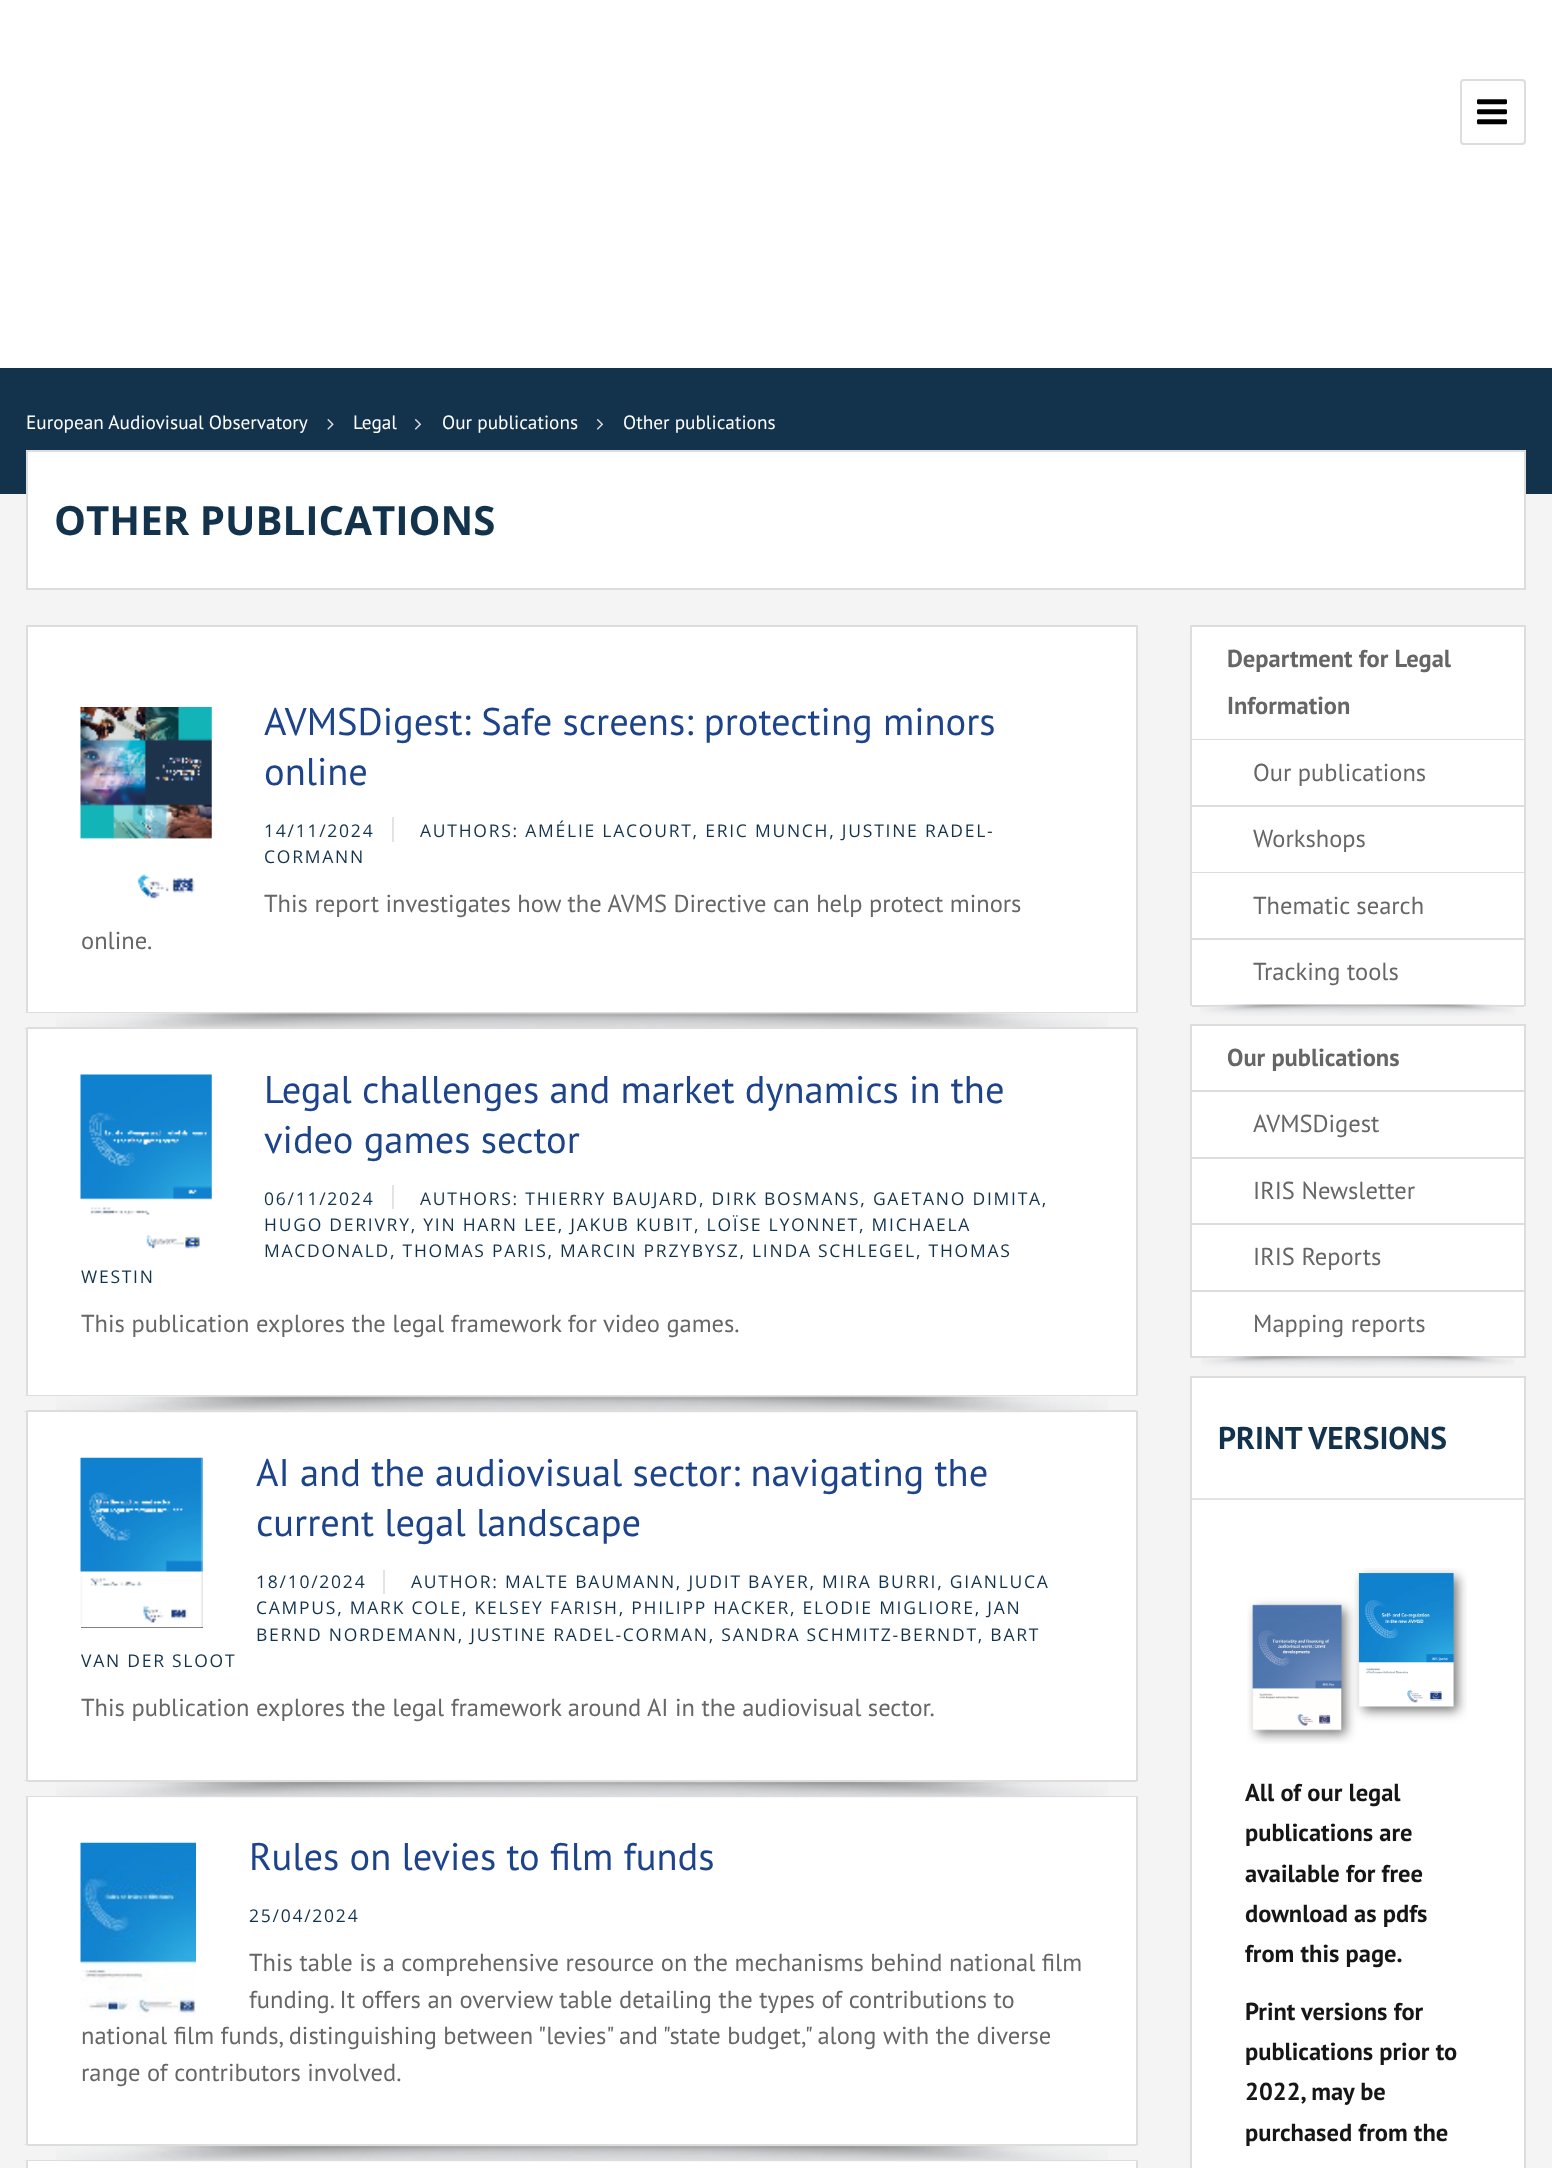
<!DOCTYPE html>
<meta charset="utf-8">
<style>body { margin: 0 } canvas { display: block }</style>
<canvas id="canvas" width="1552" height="2168"></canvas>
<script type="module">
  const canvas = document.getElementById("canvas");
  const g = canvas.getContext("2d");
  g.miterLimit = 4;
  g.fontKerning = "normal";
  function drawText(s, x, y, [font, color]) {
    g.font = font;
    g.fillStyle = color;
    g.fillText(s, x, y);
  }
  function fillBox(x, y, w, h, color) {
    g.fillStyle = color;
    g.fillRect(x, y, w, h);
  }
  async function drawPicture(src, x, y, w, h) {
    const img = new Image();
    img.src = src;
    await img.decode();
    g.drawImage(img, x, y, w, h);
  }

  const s1 = ["19.25px PT Sans", "#FFFFFF"];
  const s2 = ["bold 40.25px Open Sans", "#13334D"];
  const s3 = ["38.5px PT Sans", "#1D448A"];
  const s4 = ["17.5px Open Sans", "#13334D"];
  const s5 = ["24.5px PT Sans", "#666666"];
  const s6 = ["bold 24.5px PT Sans", "#666666"];
  const s7 = ["bold 31.5px PT Sans", "#13334D"];
  const s8 = ["bold 24.5px PT Sans", "#161616"];

  fillBox(0, 0, 1552, 2168, "#F4F4F4");
  fillBox(0, 0, 1552, 368, "#FFFFFF");
  g.beginPath();
  g.roundRect(1461, 80, 64, 64, 3);
  g.strokeStyle = "#DDDDDD";
  g.lineWidth = 2;
  g.stroke();
  await drawPicture("pic1.png", 1477, 99, 30, 26);
  fillBox(0, 368, 1552, 126, "#13334D");
  drawText("European Audiovisual Observatory", 26, 429, s1);
  await drawPicture("pic2.png", 327, 419, 7, 11);
  drawText("Legal", 353, 429, s1);
  await drawPicture("pic3.png", 414, 419, 8, 11);
  drawText("Our publications", 442, 429, s1);
  await drawPicture("pic3.png", 596, 419, 8, 11);
  drawText("Other publications", 623, 429, s1);
  g.beginPath();
  g.rect(27, 451, 1498, 138);
  g.fill();
  g.stroke();
  drawText("OTHER PUBLICATIONS", 54, 535, s2);
  g.fillStyle = "#FFFFFF";
  g.beginPath();
  g.rect(27, 626, 1110, 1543);
  g.fill();
  g.stroke();
  await drawPicture("pic4.png", 80, 707, 132, 196);
  drawText("AVMSDigest: Safe screens: protecting minors", 264, 735, s3);
  drawText("online", 264, 785, s3);
  g.letterSpacing = "1.75px";
  drawText("14/11/2024", 264, 837, s4);
  fillBox(392, 817, 2, 25, "#E2E3E2");
  drawText("AUTHORS: AMÉLIE LACOURT, ERIC MUNCH, JUSTINE RADEL-", 420, 837, s4);
  drawText("CORMANN", 264, 863, s4);
  g.letterSpacing = "0px";
  drawText("This report investigates how the AVMS Directive can help protect minors", 264, 912, s5);
  drawText("online.", 81, 949, s5);
  fillBox(26, 1012, 1112, 17, "#F4F4F4");
  await drawPicture("pic5.png", 56, 1013, 1052, 14);
  g.fillStyle = "#DDDDDD";
  g.beginPath();
  g.moveTo(24, 1012);
  g.lineTo(1139, 1012);
  g.lineTo(1136, 1013);
  g.lineTo(28, 1013);
  g.closePath();
  g.fill();
  g.beginPath();
  g.moveTo(1139, 1029);
  g.lineTo(24, 1029);
  g.lineTo(28, 1027);
  g.lineTo(1136, 1027);
  g.closePath();
  g.fill();
  await drawPicture("pic6.png", 80, 1074, 132, 186);
  drawText("Legal challenges and market dynamics in the", 264, 1103, s3);
  drawText("video games sector", 264, 1153, s3);
  g.letterSpacing = "1.75px";
  drawText("06/11/2024", 264, 1205, s4);
  fillBox(392, 1185, 2, 24, "#E2E3E2");
  drawText("AUTHORS: THIERRY BAUJARD, DIRK BOSMANS, GAETANO DIMITA,", 420, 1205, s4);
  drawText("HUGO DERIVRY, YIN HARN LEE, JAKUB KUBIT, LOÏSE LYONNET, MICHAELA", 264, 1231, s4);
  drawText("MACDONALD, THOMAS PARIS, MARCIN PRZYBYSZ, LINDA SCHLEGEL, THOMAS", 264, 1257, s4);
  drawText("WESTIN", 81, 1283, s4);
  g.letterSpacing = "0px";
  drawText("This publication explores the legal framework for video games.", 81, 1332, s5);
  fillBox(26, 1395, 1112, 17, "#F4F4F4");
  await drawPicture("pic7.png", 56, 1396, 1052, 17);
  g.fillStyle = "#DDDDDD";
  g.beginPath();
  g.moveTo(24, 1395);
  g.lineTo(1139, 1395);
  g.lineTo(1136, 1396);
  g.lineTo(28, 1396);
  g.closePath();
  g.fill();
  g.beginPath();
  g.moveTo(1139, 1412);
  g.lineTo(24, 1412);
  g.lineTo(28, 1410);
  g.lineTo(1136, 1410);
  g.closePath();
  g.fill();
  fillBox(81, 1627, 122, 1, "#000000");
  await drawPicture("pic8.png", 80, 1457, 123, 171);
  drawText("AI and the audiovisual sector: navigating the", 256, 1486, s3);
  drawText("current legal landscape", 256, 1536, s3);
  g.letterSpacing = "1.75px";
  drawText("18/10/2024", 256, 1588, s4);
  fillBox(383, 1570, 2, 24, "#E2E3E2");
  drawText("AUTHOR: MALTE BAUMANN, JUDIT BAYER, MIRA BURRI, GIANLUCA", 411, 1588, s4);
  drawText("CAMPUS, MARK COLE, KELSEY FARISH, PHILIPP HACKER, ELODIE MIGLIORE, JAN", 256, 1614, s4);
  drawText("BERND NORDEMANN, JUSTINE RADEL-CORMAN, SANDRA SCHMITZ-BERNDT, BART", 256, 1641, s4);
  drawText("VAN DER SLOOT", 81, 1667, s4);
  g.letterSpacing = "0px";
  drawText("This publication explores the legal framework around AI in the audiovisual sector.", 81, 1716, s5);
  fillBox(26, 1780, 1112, 17, "#F4F4F4");
  await drawPicture("pic9.png", 56, 1782, 1052, 16);
  g.fillStyle = "#DDDDDD";
  g.beginPath();
  g.moveTo(24, 1780);
  g.lineTo(1139, 1780);
  g.lineTo(1136, 1782);
  g.lineTo(28, 1782);
  g.closePath();
  g.fill();
  g.beginPath();
  g.moveTo(1139, 1797);
  g.lineTo(24, 1797);
  g.lineTo(28, 1796);
  g.lineTo(1136, 1796);
  g.closePath();
  g.fill();
  await drawPicture("pic10.png", 80, 1842, 116, 176);
  drawText("Rules on levies to film funds", 249, 1870, s3);
  g.letterSpacing = "1.75px";
  drawText("25/04/2024", 249, 1922, s4);
  g.letterSpacing = "0px";
  drawText("This table is a comprehensive resource on the mechanisms behind national film", 249, 1971, s5);
  drawText("funding. It offers an overview table detailing the types of contributions to", 249, 2008, s5);
  drawText("national film funds, distinguishing between \"levies\" and \"state budget,\" along with the diverse", 81, 2044, s5);
  drawText("range of contributors involved.", 81, 2081, s5);
  fillBox(26, 2144, 1112, 17, "#F4F4F4");
  await drawPicture("pic9.png", 56, 2146, 1052, 16);
  g.fillStyle = "#DDDDDD";
  g.beginPath();
  g.moveTo(24, 2144);
  g.lineTo(1139, 2144);
  g.lineTo(1136, 2146);
  g.lineTo(28, 2146);
  g.closePath();
  g.fill();
  g.beginPath();
  g.moveTo(1139, 2161);
  g.lineTo(24, 2161);
  g.lineTo(28, 2160);
  g.lineTo(1136, 2160);
  g.closePath();
  g.fill();
  fillBox(1192, 627, 332, 245, "#FFFFFF");
  g.strokeRect(1191, 626, 334, 379);
  fillBox(1192, 739, 332, 1, "#DDDDDD");
  drawText("Department for Legal", 1227, 667, s6);
  drawText("Information", 1227, 714, s6);
  fillBox(1192, 805, 332, 2, "#DDDDDD");
  drawText("Our publications", 1253, 781, s5);
  fillBox(1192, 872, 332, 1, "#DDDDDD");
  drawText("Workshops", 1253, 847, s5);
  fillBox(1192, 873, 332, 65, "#FFFFFF");
  fillBox(1192, 938, 332, 2, "#DDDDDD");
  drawText("Thematic search", 1253, 914, s5);
  fillBox(1192, 940, 332, 65, "#FFFFFF");
  fillBox(1192, 1006, 332, 1, "#DDDDDD");
  drawText("Tracking tools", 1253, 980, s5);
  await drawPicture("pic11.png", 1200, 1004, 316, 12);
  fillBox(1192, 1026, 332, 264, "#FFFFFF");
  g.strokeRect(1191, 1025, 334, 332);
  fillBox(1192, 1090, 332, 2, "#DDDDDD");
  drawText("Our publications", 1227, 1066, s6);
  fillBox(1192, 1157, 332, 2, "#DDDDDD");
  drawText("AVMSDigest", 1253, 1132, s5);
  fillBox(1192, 1223, 332, 2, "#DDDDDD");
  drawText("IRIS Newsletter", 1253, 1199, s5);
  fillBox(1192, 1290, 332, 2, "#DDDDDD");
  drawText("IRIS Reports", 1253, 1265, s5);
  fillBox(1192, 1292, 332, 64, "#FFFFFF");
  drawText("Mapping reports", 1253, 1332, s5);
  await drawPicture("pic12.png", 1201, 1356, 314, 12);
  g.fillStyle = "#FFFFFF";
  g.beginPath();
  g.rect(1191, 1377, 334, 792);
  g.fill();
  g.stroke();
  drawText("PRINT VERSIONS", 1218, 1449, s7);
  fillBox(1192, 1498, 332, 2, "#E3E3E3");
  await drawPicture("pic13.png", 1247, 1568, 220, 176);
  drawText("All of our legal", 1245, 1801, s8);
  drawText("publications are", 1245, 1841, s8);
  drawText("available for free", 1245, 1882, s8);
  drawText("download as pdfs", 1245, 1922, s8);
  drawText("from this page.", 1245, 1962, s8);
  drawText("Print versions for", 1245, 2020, s8);
  drawText("publications prior to", 1245, 2060, s8);
  drawText("2022, may be", 1245, 2100, s8);
  drawText("purchased from the", 1245, 2141, s8);
</script>
